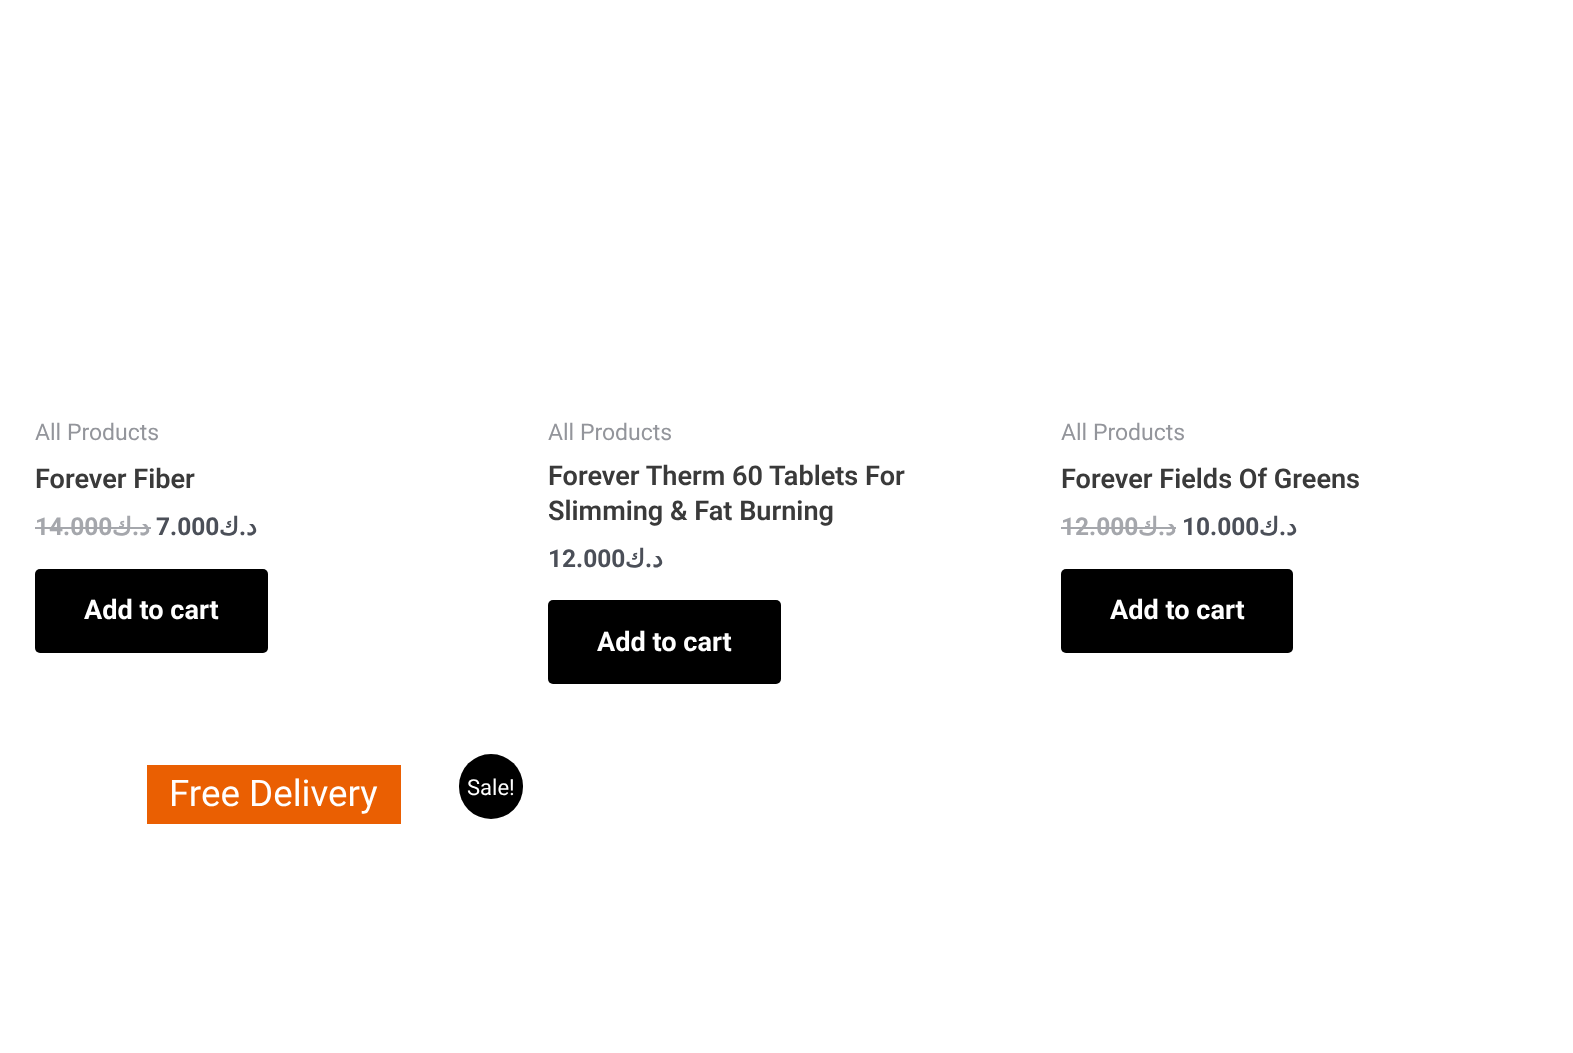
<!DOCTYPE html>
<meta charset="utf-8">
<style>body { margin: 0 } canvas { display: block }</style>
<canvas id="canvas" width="1573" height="1053"></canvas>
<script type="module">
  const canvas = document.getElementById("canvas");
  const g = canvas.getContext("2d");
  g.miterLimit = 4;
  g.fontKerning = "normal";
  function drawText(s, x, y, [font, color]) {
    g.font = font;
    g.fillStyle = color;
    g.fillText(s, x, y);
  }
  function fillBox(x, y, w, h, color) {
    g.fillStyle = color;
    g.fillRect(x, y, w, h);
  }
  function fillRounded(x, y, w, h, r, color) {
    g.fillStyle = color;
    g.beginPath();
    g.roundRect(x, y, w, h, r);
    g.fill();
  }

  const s1 = ["23px Roboto", "#93959B"];
  const s2 = ["600 27.1px Roboto", "#3A3A3A"];
  const s3 = ["bold 24.5px Roboto", "#A5A7AC"];
  const s4 = ["bold 24.5px DejaVu Sans", "#A5A7AC"];
  const s5 = ["bold 24.5px Roboto", "#4B4F58"];
  const s6 = ["bold 24.5px DejaVu Sans", "#4B4F58"];
  const s7 = ["bold 27.1px Roboto", "#FFFFFF"];
  const s8 = ["36.75px Roboto", "#FFFFFF"];
  const s9 = ["22px Roboto", "#FFFFFF"];

  fillBox(0, 0, 1573, 1053, "#FFFFFF");
  drawText("All Products", 35, 440, s1);
  drawText("Forever Fiber", 35, 488, s2);
  drawText("14.000", 35, 535, s3);
  fillBox(35, 527, 77, 2, "#A5A7AC");
  g.direction = "rtl";
  drawText("ك", 132, 535, s4);
  fillBox(112, 527, 39, 2, "#A5A7AC");
  drawText(".", 139, 535, s3);
  drawText("د", 150, 535, s4);
  g.direction = "ltr";
  drawText("7.000", 156, 535, s5);
  g.direction = "rtl";
  drawText("ك", 239, 535, s6);
  drawText(".", 246, 535, s5);
  drawText("د", 257, 535, s6);
  fillRounded(35, 569, 233, 84, 5, "#000000");
  g.direction = "ltr";
  drawText("Add to cart", 84, 619, s7);
  drawText("All Products", 548, 440, s1);
  drawText("Forever Therm 60 Tablets For", 548, 485, s2);
  drawText("Slimming & Fat Burning", 548, 520, s2);
  drawText("12.000", 548, 567, s5);
  g.direction = "rtl";
  drawText("ك", 645, 567, s6);
  drawText(".", 652, 567, s5);
  drawText("د", 663, 567, s6);
  fillRounded(548, 600, 233, 84, 5, "#000000");
  g.direction = "ltr";
  drawText("Add to cart", 597, 651, s7);
  drawText("All Products", 1061, 440, s1);
  drawText("Forever Fields Of Greens", 1061, 488, s2);
  drawText("12.000", 1061, 535, s3);
  fillBox(1061, 527, 77, 2, "#A5A7AC");
  g.direction = "rtl";
  drawText("ك", 1158, 535, s4);
  fillBox(1138, 527, 38, 2, "#A5A7AC");
  drawText(".", 1165, 535, s3);
  drawText("د", 1176, 535, s4);
  g.direction = "ltr";
  drawText("10.000", 1182, 535, s5);
  g.direction = "rtl";
  drawText("ك", 1279, 535, s6);
  drawText(".", 1286, 535, s5);
  drawText("د", 1297, 535, s6);
  fillRounded(1061, 569, 232, 84, 5, "#000000");
  g.direction = "ltr";
  drawText("Add to cart", 1110, 619, s7);
  fillBox(147, 765, 254, 59, "#EA5F02");
  drawText("Free Delivery", 169, 806, s8);
  fillRounded(459, 754, 64, 65, 32, "#000000");
  drawText("Sale!", 467, 795, s9);
</script>
